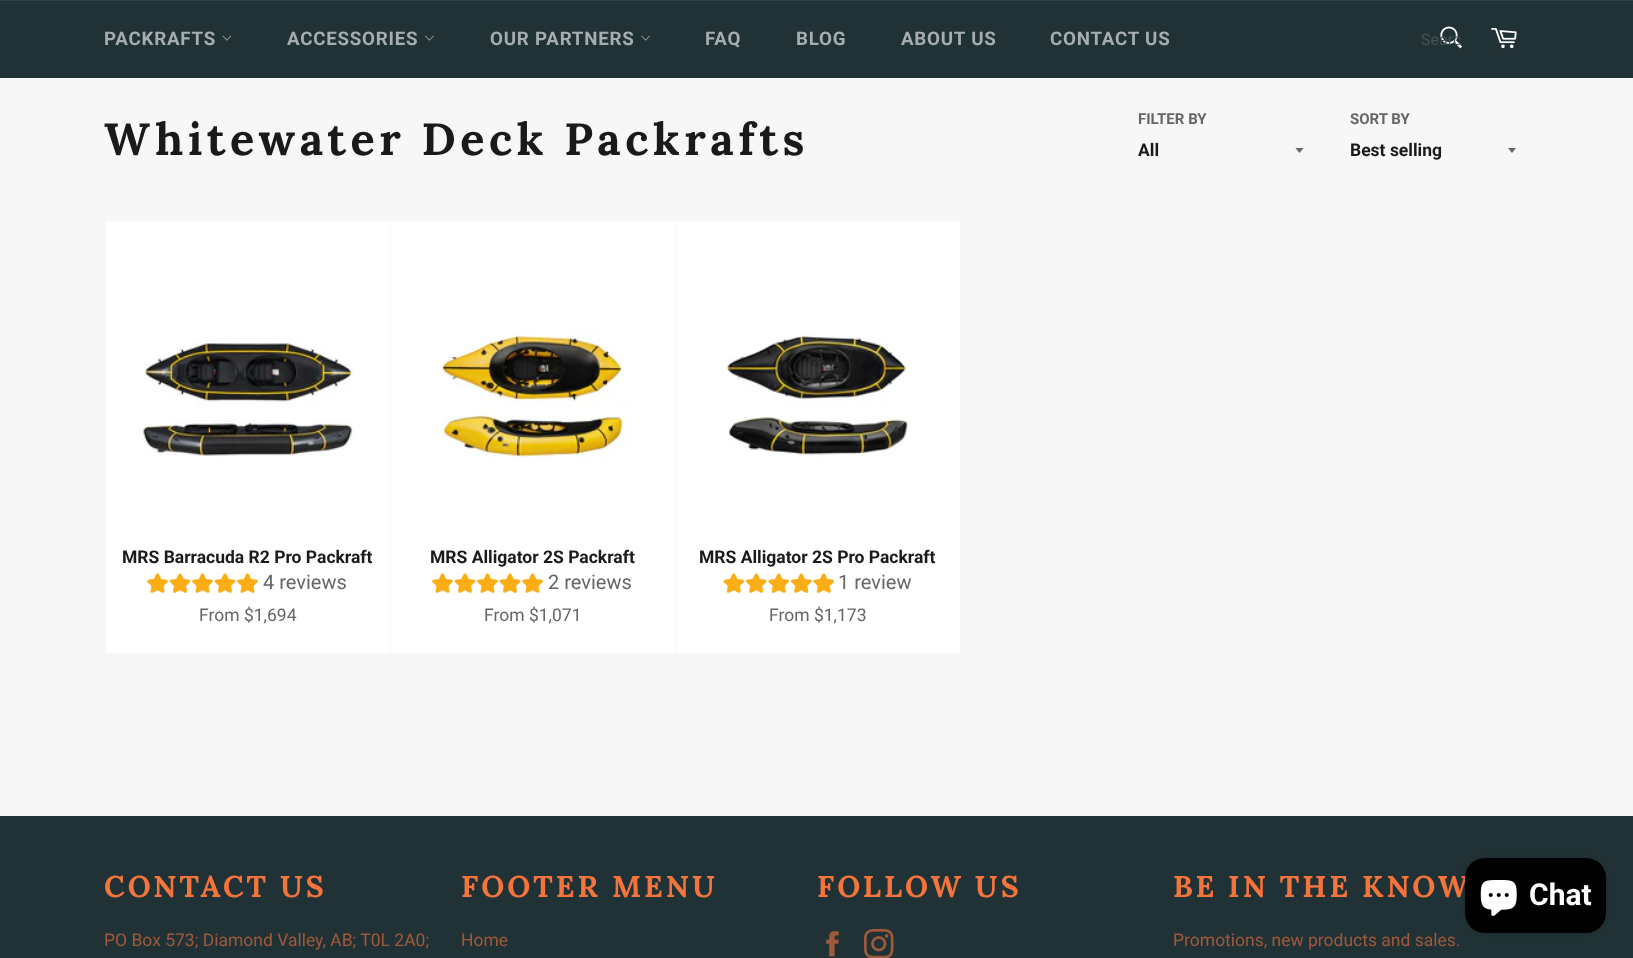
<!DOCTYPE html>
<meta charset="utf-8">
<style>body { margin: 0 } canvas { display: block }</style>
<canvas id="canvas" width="1633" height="958"></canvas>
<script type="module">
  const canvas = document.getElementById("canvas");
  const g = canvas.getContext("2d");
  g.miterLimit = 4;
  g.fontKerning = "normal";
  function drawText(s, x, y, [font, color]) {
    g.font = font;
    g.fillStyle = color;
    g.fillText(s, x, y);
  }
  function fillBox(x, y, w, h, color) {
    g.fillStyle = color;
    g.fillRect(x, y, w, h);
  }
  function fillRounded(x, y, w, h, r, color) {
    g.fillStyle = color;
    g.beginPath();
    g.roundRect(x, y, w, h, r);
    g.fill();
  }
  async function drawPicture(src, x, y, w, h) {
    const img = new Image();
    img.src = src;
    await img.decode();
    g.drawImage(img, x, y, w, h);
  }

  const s1 = ["bold 18.75px Roboto", "#A6ADAF"];
  const s2 = ["16px Roboto", "#455356"];
  const s3 = ["bold 45px Lora", "#1A1A1A"];
  const s4 = ["bold 15px Roboto", "#666666"];
  const s5 = ["bold 17.5px Roboto", "#1A1A1A"];
  const s6 = ["20px Roboto", "#666666"];
  const s7 = ["17.5px Roboto", "#666666"];
  const s8 = ["bold 30px Lora", "#F4743C"];
  const s9 = ["17.5px Roboto", "#A05A3A"];
  const s10 = ["bold 30px Roboto", "#FFFFFF"];

  fillBox(0, 0, 1633, 958, "#F7F7F7");
  fillBox(0, 1, 1633, 77, "#213236");
  fillBox(0, 0, 1633, 1, "#2B4146");
  g.letterSpacing = "0.75px";
  drawText("PACKRAFTS", 104, 45, s1);
  await drawPicture("pic1.png", 222, 35, 10, 6);
  drawText("ACCESSORIES", 287, 45, s1);
  await drawPicture("pic2.png", 425, 35, 9, 6);
  drawText("OUR PARTNERS", 490, 45, s1);
  await drawPicture("pic3.png", 641, 35, 9, 6);
  drawText("FAQ", 705, 45, s1);
  drawText("BLOG", 796, 45, s1);
  drawText("ABOUT US", 901, 45, s1);
  drawText("CONTACT US", 1050, 45, s1);
  await drawPicture("pic4.png", 1440, 26, 22, 23);
  g.letterSpacing = "0px";
  drawText("Searc", 1421, 45, s2);
  await drawPicture("pic5.png", 1491, 28, 26, 21);
  g.letterSpacing = "4.5px";
  drawText("Whitewater Deck Packrafts", 104, 155, s3);
  g.letterSpacing = "0px";
  drawText("FILTER BY", 1138, 124, s4);
  g.save();
  g.beginPath();
  g.rect(1295, 148, 10, 6);
  g.clip();
  g.beginPath();
  g.moveTo(1295, 147.5);
  g.lineTo(1299.5, 153);
  g.lineTo(1304, 147.5);
  g.closePath();
  g.fill();
  g.restore();
  drawText("All", 1138, 156, s5);
  drawText("SORT BY", 1350, 124, s4);
  g.save();
  g.beginPath();
  g.rect(1508, 148, 10, 6);
  g.clip();
  g.beginPath();
  g.moveTo(1507.5, 147.5);
  g.lineTo(1512, 153);
  g.lineTo(1516.5, 147.5);
  g.closePath();
  g.fill();
  g.restore();
  drawText("Best selling", 1350, 156, s5);
  fillBox(106, 221, 284, 432, "#FFFFFF");
  await drawPicture("pic6.png", 143, 340, 211, 118);
  drawText("MRS Barracuda R2 Pro Packraft", 122, 563, s5);
  await drawPicture("pic7.png", 147, 573, 21, 20);
  await drawPicture("pic8.png", 169, 573, 22, 20);
  await drawPicture("pic7.png", 192, 573, 21, 20);
  await drawPicture("pic8.png", 214, 573, 22, 20);
  await drawPicture("pic7.png", 237, 573, 21, 20);
  drawText("4 reviews", 263, 589, s6);
  drawText("From $1,694", 199, 621, s7);
  fillBox(391, 221, 284, 432, "#FFFFFF");
  await drawPicture("pic9.png", 442, 330, 187, 131);
  drawText("MRS Alligator 2S Packraft", 430, 563, s5);
  await drawPicture("pic7.png", 432, 573, 21, 20);
  await drawPicture("pic8.png", 454, 573, 22, 20);
  await drawPicture("pic7.png", 477, 573, 21, 20);
  await drawPicture("pic8.png", 499, 573, 22, 20);
  await drawPicture("pic7.png", 522, 573, 21, 20);
  drawText("2 reviews", 548, 589, s6);
  drawText("From $1,071", 484, 621, s7);
  fillBox(676, 221, 284, 432, "#FFFFFF");
  await drawPicture("pic10.png", 726, 334, 187, 123);
  drawText("MRS Alligator 2S Pro Packraft", 699, 563, s5);
  await drawPicture("pic11.png", 723, 573, 21, 20);
  await drawPicture("pic12.png", 746, 573, 21, 20);
  await drawPicture("pic11.png", 768, 573, 21, 20);
  await drawPicture("pic12.png", 791, 573, 21, 20);
  await drawPicture("pic11.png", 813, 573, 21, 20);
  drawText("1 review", 838, 589, s6);
  drawText("From $1,173", 769, 621, s7);
  fillBox(0, 816, 1633, 142, "#213236");
  g.letterSpacing = "3px";
  drawText("CONTACT US", 104, 897, s8);
  g.letterSpacing = "0px";
  drawText("PO Box 573; Diamond Valley, AB; T0L 2A0;", 104, 946, s9);
  g.letterSpacing = "3px";
  drawText("FOOTER MENU", 461, 897, s8);
  g.letterSpacing = "0px";
  drawText("Home", 461, 946, s9);
  g.letterSpacing = "3px";
  drawText("FOLLOW US", 817, 897, s8);
  await drawPicture("pic13.png", 826, 931, 13, 26);
  await drawPicture("pic14.png", 864, 929, 30, 29);
  drawText("BE IN THE KNOW", 1173, 897, s8);
  g.letterSpacing = "0px";
  drawText("Promotions, new products and sales.", 1173, 946, s9);
  g.fillStyle = "rgba(0, 0, 0, 0.15)";
  g.filter = "blur(3px)";
  g.beginPath();
  g.roundRect(1465, 858, 141, 75, 20);
  g.fill();
  g.filter = "none";
  fillRounded(1465, 858, 141, 75, 20, "#000000");
  await drawPicture("pic15.png", 1480, 880, 37, 36);
  drawText("Chat", 1529, 905, s10);
</script>
